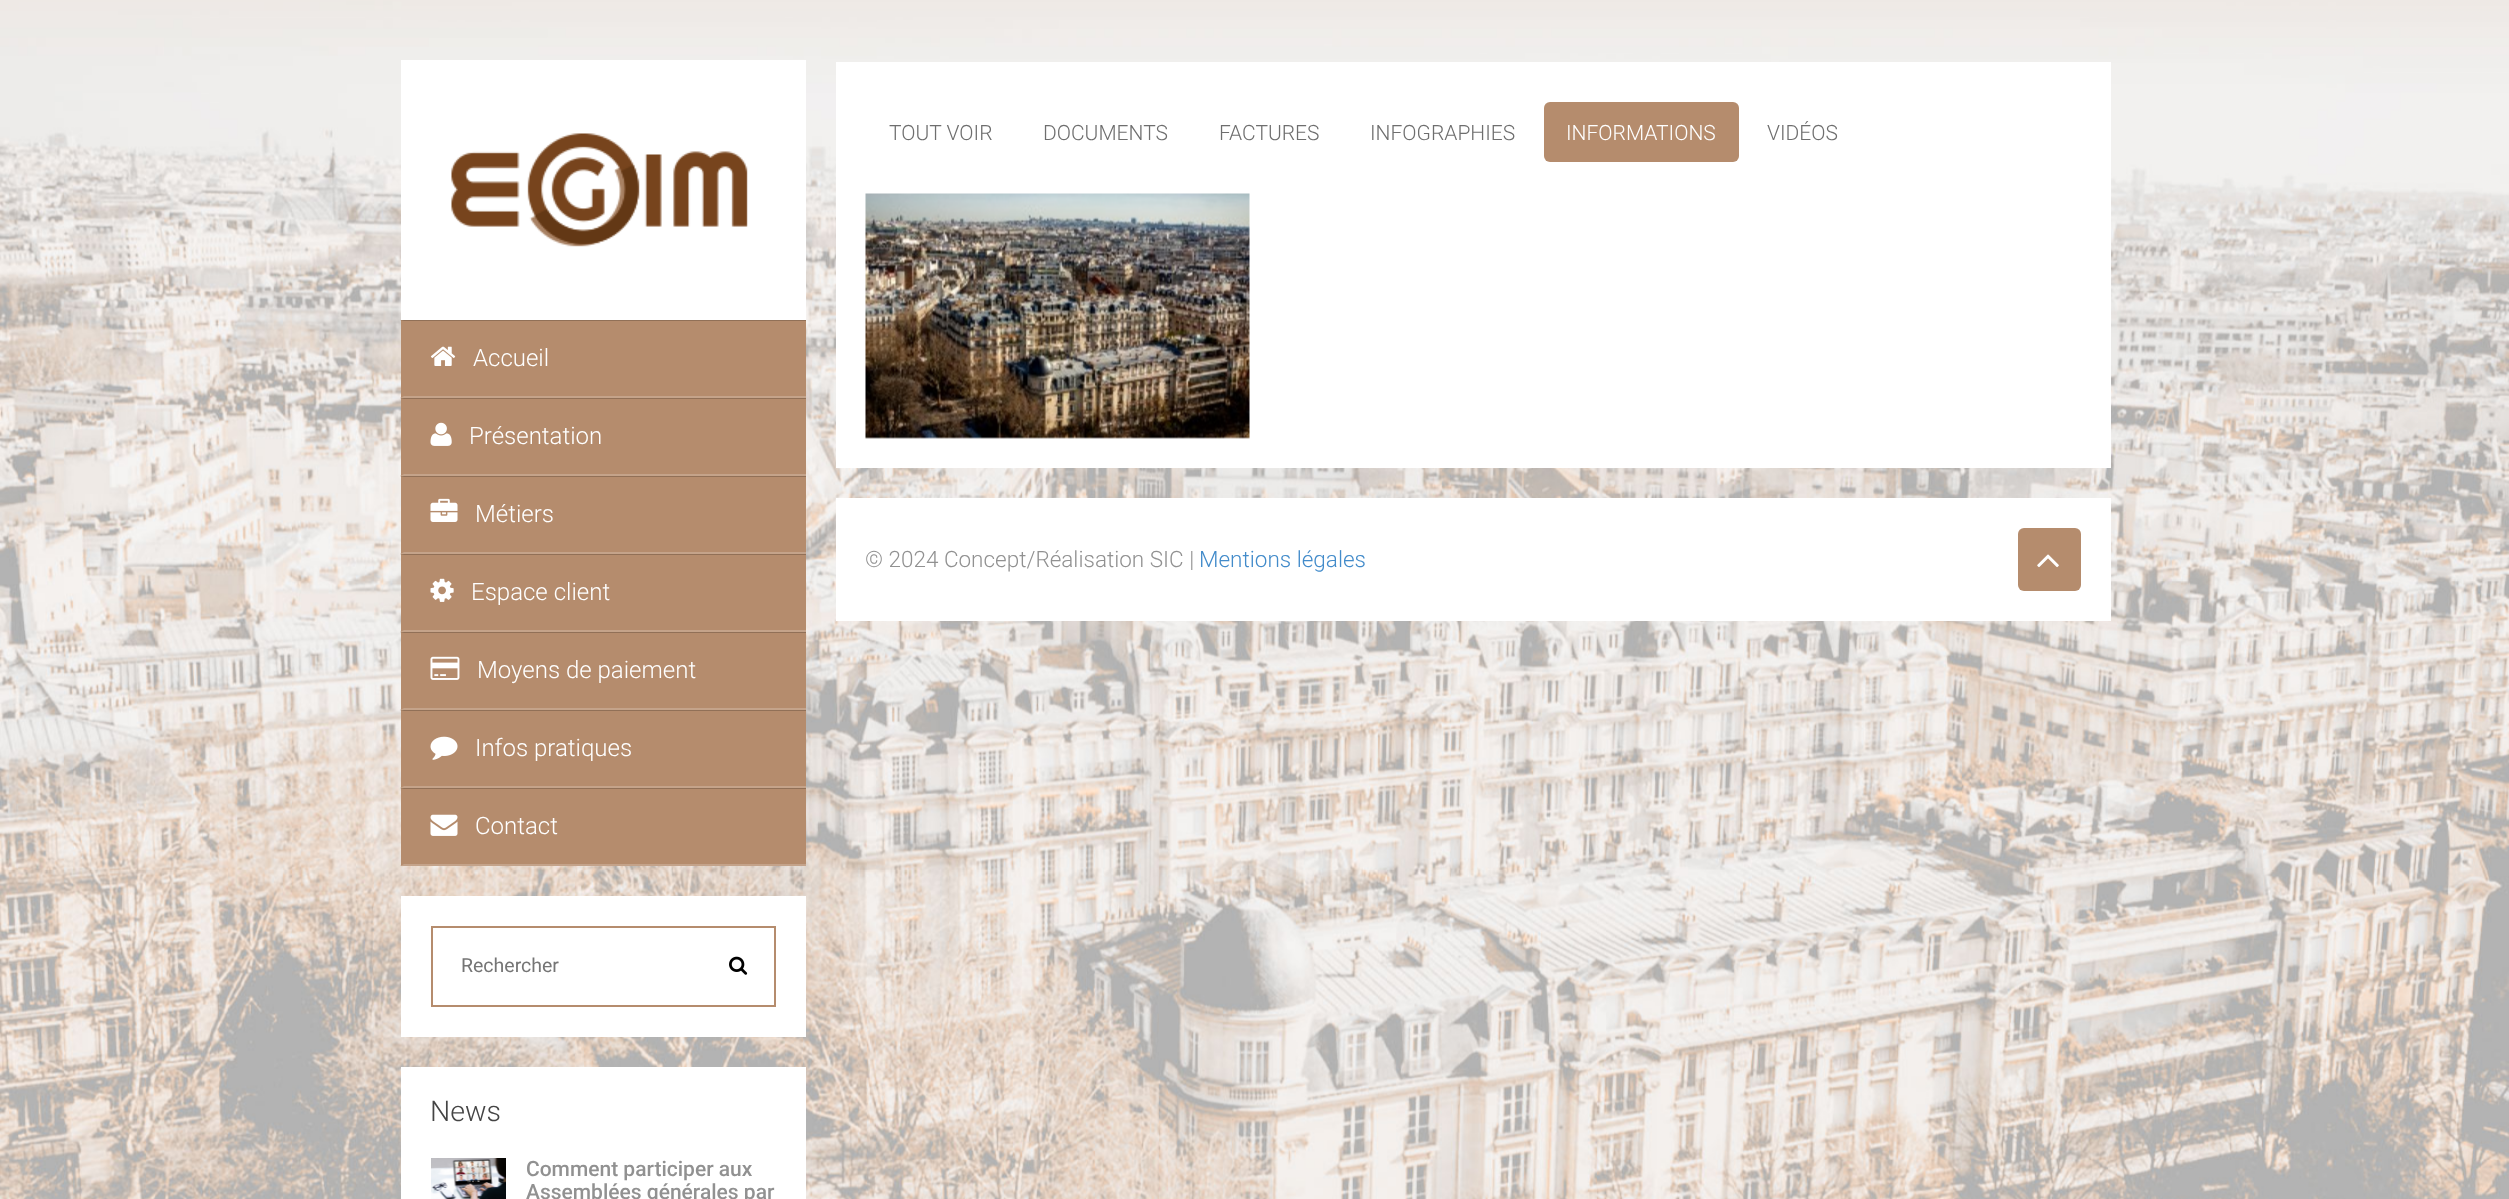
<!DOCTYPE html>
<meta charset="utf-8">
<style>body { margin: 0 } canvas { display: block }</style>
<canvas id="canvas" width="2509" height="1199"></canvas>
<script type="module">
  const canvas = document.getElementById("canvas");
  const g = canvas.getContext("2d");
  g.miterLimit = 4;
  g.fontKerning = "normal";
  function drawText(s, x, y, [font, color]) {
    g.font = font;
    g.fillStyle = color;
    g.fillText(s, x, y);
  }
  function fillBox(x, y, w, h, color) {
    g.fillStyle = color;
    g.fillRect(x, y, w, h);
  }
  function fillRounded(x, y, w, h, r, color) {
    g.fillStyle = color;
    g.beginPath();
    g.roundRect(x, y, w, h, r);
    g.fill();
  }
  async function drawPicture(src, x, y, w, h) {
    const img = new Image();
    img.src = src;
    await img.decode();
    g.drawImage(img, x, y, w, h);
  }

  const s1 = ["300 24px Roboto", "#FFFFFF"];
  const s2 = ["19.5px Roboto", "#757575"];
  const s3 = ["300 28.5px Roboto", "#444444"];
  const s4 = ["500 21px Roboto", "#919191"];
  const s5 = ["300 21px Roboto", "#6E6E6E"];
  const s6 = ["300 21px Roboto", "#FFFFFF"];
  const s7 = ["300 22.5px Roboto", "#919191"];
  const s8 = ["300 22.5px Roboto", "#428BCA"];

  fillBox(0, 0, 2509, 1199, "#FFFFFF");
  await drawPicture("pic1.png", 0, 0, 2509, 1199);
  fillBox(401, 60, 405, 260, "#FFFFFF");
  await drawPicture("pic2.png", 451, 133, 297, 114);
  fillBox(401, 320, 405, 546, "#B58C6D");
  g.fillStyle = "#917057";
  g.beginPath();
  g.moveTo(400, 320);
  g.lineTo(806, 320);
  g.lineTo(806, 321);
  g.lineTo(404, 321);
  g.closePath();
  g.fill();
  g.fillStyle = "#C4A38A";
  g.beginPath();
  g.moveTo(806, 398);
  g.lineTo(400, 398);
  g.lineTo(404, 396);
  g.lineTo(806, 396);
  g.closePath();
  g.fill();
  await drawPicture("pic3.png", 430, 346, 26, 20);
  drawText("Accueil", 473, 366, s1);
  g.fillStyle = "#917057";
  g.beginPath();
  g.moveTo(400, 398);
  g.lineTo(806, 398);
  g.lineTo(806, 399);
  g.lineTo(404, 399);
  g.closePath();
  g.fill();
  g.fillStyle = "#C4A38A";
  g.beginPath();
  g.moveTo(806, 476);
  g.lineTo(400, 476);
  g.lineTo(404, 474);
  g.lineTo(806, 474);
  g.closePath();
  g.fill();
  await drawPicture("pic4.png", 430, 422, 22, 24);
  drawText("Présentation", 469, 444, s1);
  g.fillStyle = "#917057";
  g.beginPath();
  g.moveTo(400, 476);
  g.lineTo(806, 476);
  g.lineTo(806, 477);
  g.lineTo(404, 477);
  g.closePath();
  g.fill();
  g.fillStyle = "#C4A38A";
  g.beginPath();
  g.moveTo(806, 554);
  g.lineTo(400, 554);
  g.lineTo(404, 552);
  g.lineTo(806, 552);
  g.closePath();
  g.fill();
  await drawPicture("pic5.png", 430, 498, 28, 24);
  drawText("Métiers", 475, 522, s1);
  g.fillStyle = "#917057";
  g.beginPath();
  g.moveTo(400, 554);
  g.lineTo(806, 554);
  g.lineTo(806, 555);
  g.lineTo(404, 555);
  g.closePath();
  g.fill();
  g.fillStyle = "#C4A38A";
  g.beginPath();
  g.moveTo(806, 632);
  g.lineTo(400, 632);
  g.lineTo(404, 630);
  g.lineTo(806, 630);
  g.closePath();
  g.fill();
  await drawPicture("pic6.png", 430, 578, 24, 24);
  drawText("Espace client", 471, 600, s1);
  g.fillStyle = "#917057";
  g.beginPath();
  g.moveTo(400, 632);
  g.lineTo(806, 632);
  g.lineTo(806, 633);
  g.lineTo(404, 633);
  g.closePath();
  g.fill();
  g.fillStyle = "#C4A38A";
  g.beginPath();
  g.moveTo(806, 710);
  g.lineTo(400, 710);
  g.lineTo(404, 708);
  g.lineTo(806, 708);
  g.closePath();
  g.fill();
  await drawPicture("pic7.png", 430, 656, 30, 24);
  drawText("Moyens de paiement", 477, 678, s1);
  g.fillStyle = "#917057";
  g.beginPath();
  g.moveTo(400, 710);
  g.lineTo(806, 710);
  g.lineTo(806, 711);
  g.lineTo(404, 711);
  g.closePath();
  g.fill();
  g.fillStyle = "#C4A38A";
  g.beginPath();
  g.moveTo(806, 788);
  g.lineTo(400, 788);
  g.lineTo(404, 786);
  g.lineTo(806, 786);
  g.closePath();
  g.fill();
  await drawPicture("pic8.png", 430, 736, 28, 24);
  drawText("Infos pratiques", 475, 756, s1);
  g.fillStyle = "#917057";
  g.beginPath();
  g.moveTo(400, 788);
  g.lineTo(806, 788);
  g.lineTo(806, 789);
  g.lineTo(404, 789);
  g.closePath();
  g.fill();
  g.fillStyle = "#C4A38A";
  g.beginPath();
  g.moveTo(806, 866);
  g.lineTo(400, 866);
  g.lineTo(404, 864);
  g.lineTo(806, 864);
  g.closePath();
  g.fill();
  await drawPicture("pic9.png", 430, 814, 28, 22);
  drawText("Contact", 475, 834, s1);
  fillBox(401, 896, 405, 141, "#FFFFFF");
  g.strokeStyle = "#B58C6D";
  g.lineWidth = 2;
  g.strokeRect(432, 927, 343, 79);
  drawText("Rechercher", 461, 972, s2);
  await drawPicture("pic10.png", 729, 956, 19, 19);
  fillBox(401, 1067, 405, 132, "#FFFFFF");
  drawText("News", 430, 1121, s3);
  await drawPicture("pic11.png", 431, 1158, 75, 41);
  drawText("Comment participer aux", 526, 1176, s4);
  drawText("Assemblées générales par", 526, 1199, s4);
  fillBox(836, 62, 1275, 406, "#FFFFFF");
  drawText("TOUT VOIR", 889, 140, s5);
  drawText("DOCUMENTS", 1043, 140, s5);
  drawText("FACTURES", 1219, 140, s5);
  drawText("INFOGRAPHIES", 1370, 140, s5);
  fillRounded(1544, 102, 195, 60, 6, "#B58C6D");
  drawText("INFORMATIONS", 1566, 140, s6);
  drawText("VIDÉOS", 1767, 140, s5);
  await drawPicture("pic12.png", 865, 193, 385, 246);
  fillBox(836, 498, 1275, 123, "#FFFFFF");
  drawText("© 2024 Concept/Réalisation SIC |", 865, 567, s7);
  drawText("Mentions légales", 1199, 567, s8);
  fillRounded(2018, 528, 63, 63, 6, "#B58C6D");
  await drawPicture("pic13.png", 2037, 554, 22, 14);
</script>
